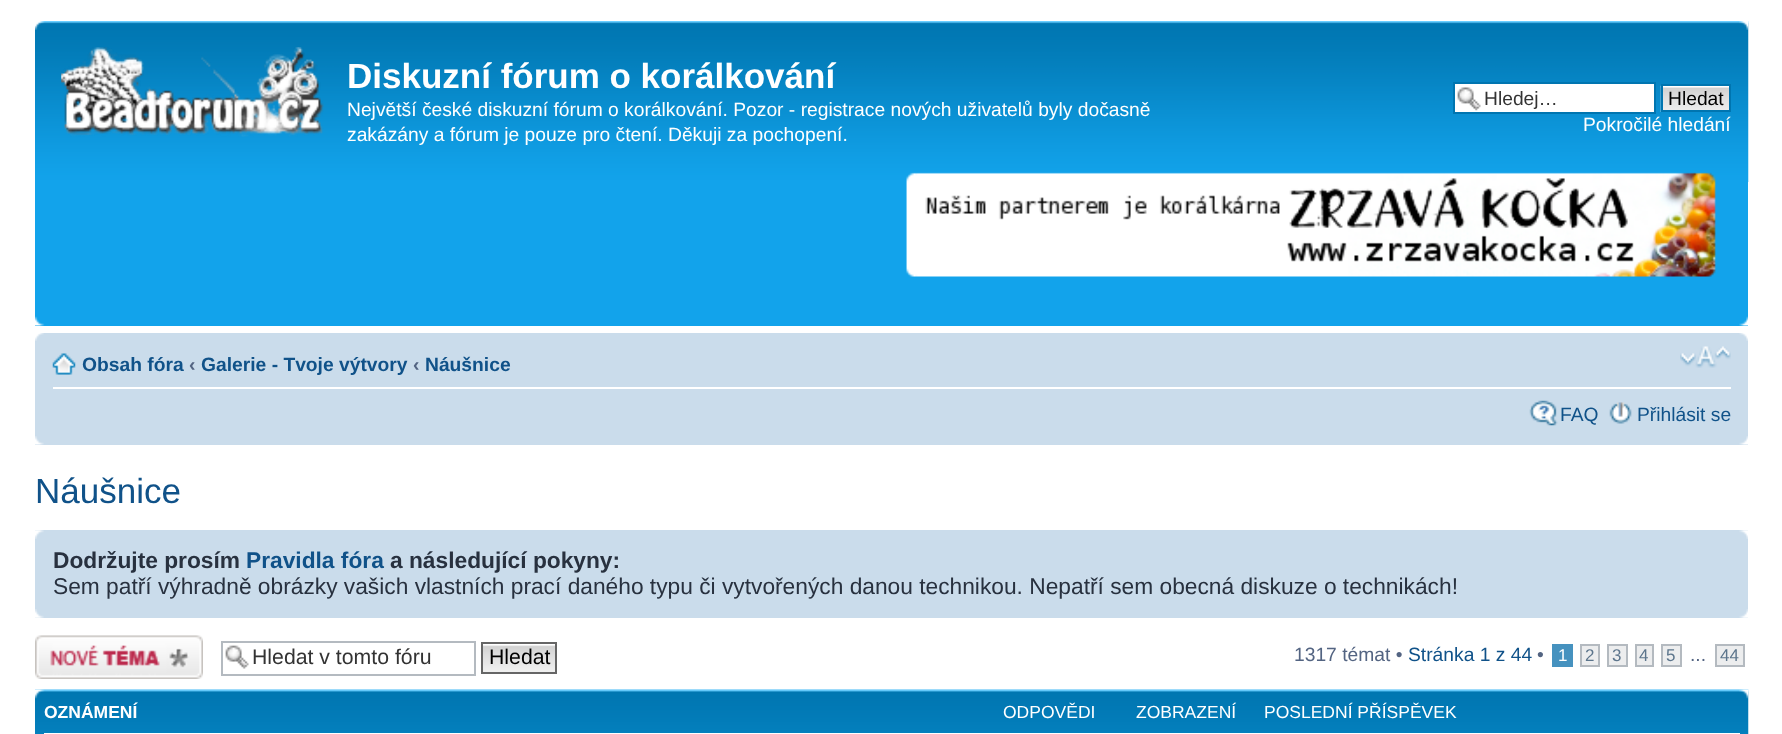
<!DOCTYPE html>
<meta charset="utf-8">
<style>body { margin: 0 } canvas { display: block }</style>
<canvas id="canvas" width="1782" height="734"></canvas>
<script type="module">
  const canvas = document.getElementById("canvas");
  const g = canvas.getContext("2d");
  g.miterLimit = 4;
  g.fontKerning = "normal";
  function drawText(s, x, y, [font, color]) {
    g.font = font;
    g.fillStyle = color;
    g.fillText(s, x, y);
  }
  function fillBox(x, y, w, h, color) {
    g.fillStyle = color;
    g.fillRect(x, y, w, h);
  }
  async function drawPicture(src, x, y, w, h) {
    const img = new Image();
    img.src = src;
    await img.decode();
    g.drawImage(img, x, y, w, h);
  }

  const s1 = ["bold 35px Liberation Sans", "#FFFFFF"];
  const s2 = ["19.25px Liberation Sans", "#FFFFFF"];
  const s3 = ["19.25px Liberation Sans", "#333333"];
  const s4 = ["19.25px Liberation Sans", "#000000"];
  const s5 = ["bold 19.25px Liberation Sans", "#105289"];
  const s6 = ["bold 19.25px Liberation Sans", "#536482"];
  const s7 = ["19.25px Liberation Sans", "#105289"];
  const s8 = ["35px Liberation Sans", "#105289"];
  const s9 = ["bold 22.75px Liberation Sans", "#28313F"];
  const s10 = ["bold 22.75px Liberation Sans", "#105289"];
  const s11 = ["22.75px Liberation Sans", "#28313F"];
  const s12 = ["21.25px Liberation Sans", "#333333"];
  const s13 = ["21.25px Liberation Sans", "#000000"];
  const s14 = ["19.25px Liberation Sans", "#536482"];
  const s15 = ["17px Liberation Sans", "#FFFFFF"];
  const s16 = ["17px Liberation Sans", "#5C758C"];
  const s17 = ["bold 17.5px Liberation Sans", "#FFFFFF"];
  const s18 = ["17.5px Liberation Sans", "#FFFFFF"];

  fillBox(0, 0, 1782, 734, "#FFFFFF");
  fillBox(35, 182, 1713, 144, "#12A3EB");
  await drawPicture("pic1.png", 35, 21, 1714, 161);
  await drawPicture("pic2.png", 35, 21, 10, 9);
  await drawPicture("pic3.png", 1739, 21, 10, 9);
  await drawPicture("pic4.png", 61, 47, 263, 90);
  drawText("Diskuzní fórum o korálkování", 347, 88, s1);
  drawText("Největší české diskuzní fórum o korálkování. Pozor - registrace nových uživatelů byly dočasně", 347, 116, s2);
  drawText("zakázány a fórum je pouze pro čtení. Děkuji za pochopení.", 347, 141, s2);
  fillBox(1455, 84, 199, 28, "#FFFFFF");
  await drawPicture("pic5.png", 1457, 87, 24, 24);
  g.strokeStyle = "#0075B0";
  g.lineWidth = 2;
  g.strokeRect(1454, 83, 201, 30);
  drawText("Hledej…", 1484, 105, s3);
  await drawPicture("pic6.png", 1660, 85, 69, 27);
  g.strokeRect(1662, 85, 68, 26);
  drawText("Hledat", 1668, 105, s4);
  drawText("Pokročilé hledání", 1583, 131, s2);
  await drawPicture("pic7.png", 906, 172, 810, 105);
  await drawPicture("pic8.png", 35, 316, 10, 10);
  await drawPicture("pic9.png", 1739, 316, 9, 10);
  fillBox(35, 333, 1713, 112, "#CADCEB");
  await drawPicture("pic10.png", 35, 333, 9, 8);
  await drawPicture("pic11.png", 1739, 333, 9, 8);
  fillBox(53, 387, 1678, 2, "#FFFFFF");
  await drawPicture("pic12.png", 52, 353, 24, 22);
  drawText("Obsah fóra", 82, 371, s5);
  drawText("‹", 189, 371, s6);
  drawText("Galerie - Tvoje výtvory", 201, 371, s5);
  drawText("‹", 413, 371, s6);
  drawText("Náušnice", 425, 371, s5);
  await drawPicture("pic13.png", 1680, 346, 51, 22);
  await drawPicture("pic14.png", 1529, 400, 29, 26);
  drawText("FAQ", 1560, 421, s7);
  await drawPicture("pic15.png", 1609, 402, 23, 22);
  drawText("Přihlásit se", 1637, 421, s7);
  await drawPicture("pic16.png", 35, 436, 9, 9);
  await drawPicture("pic17.png", 1739, 436, 9, 9);
  drawText("Náušnice", 35, 503, s8);
  fillBox(35, 530, 1713, 88, "#CADCEB");
  await drawPicture("pic18.png", 35, 530, 9, 9);
  await drawPicture("pic19.png", 1739, 530, 9, 9);
  drawText("Dodržujte prosím", 53, 568, s9);
  drawText("Pravidla fóra", 246, 568, s10);
  drawText("a následující pokyny:", 390, 568, s9);
  drawText("Sem patří výhradně obrázky vašich vlastních prací daného typu či vytvořených danou technikou. Nepatří sem obecná diskuze o technikách!", 53, 594, s11);
  await drawPicture("pic20.png", 35, 609, 9, 9);
  await drawPicture("pic21.png", 1739, 609, 9, 9);
  await drawPicture("pic22.png", 35, 635, 168, 44);
  await drawPicture("pic23.png", 225, 645, 24, 24);
  g.strokeStyle = "#B4BAC0";
  g.strokeRect(222, 642, 253, 33);
  drawText("Hledat v tomto fóru", 252, 664, s12);
  await drawPicture("pic24.png", 483, 644, 72, 28);
  g.strokeStyle = "#666666";
  g.strokeRect(482, 643, 74, 30);
  drawText("Hledat", 489, 664, s13);
  drawText("1317 témat •", 1294, 661, s14);
  drawText("Stránka 1 z 44", 1408, 661, s7);
  drawText("•", 1537, 661, s14);
  fillBox(1552, 644, 21, 23, "#4692BF");
  drawText("1", 1558, 661, s15);
  g.fillStyle = "#ECEDEE";
  g.beginPath();
  g.rect(1581, 645, 18, 21);
  g.fill();
  g.strokeStyle = "#B4BAC0";
  g.stroke();
  drawText("2", 1585, 661, s16);
  g.fillStyle = "#ECEDEE";
  g.beginPath();
  g.rect(1608, 645, 19, 21);
  g.fill();
  g.stroke();
  drawText("3", 1612, 661, s16);
  g.fillStyle = "#ECEDEE";
  g.beginPath();
  g.rect(1636, 645, 17, 21);
  g.fill();
  g.stroke();
  drawText("4", 1639, 661, s16);
  g.fillStyle = "#ECEDEE";
  g.beginPath();
  g.rect(1662, 645, 19, 21);
  g.fill();
  g.stroke();
  drawText("5", 1666, 661, s16);
  g.fillStyle = "#ECEDEE";
  g.beginPath();
  g.rect(1716, 645, 28, 21);
  g.fill();
  g.stroke();
  drawText("44", 1720, 661, s16);
  drawText("...", 1690, 661, s14);
  await drawPicture("pic25.png", 35, 689, 1714, 45);
  await drawPicture("pic26.png", 35, 689, 10, 10);
  await drawPicture("pic27.png", 1739, 689, 10, 10);
  drawText("OZNÁMENÍ", 44, 718, s17);
  drawText("ODPOVĚDI", 1003, 718, s18);
  drawText("ZOBRAZENÍ", 1136, 718, s18);
  drawText("POSLEDNÍ PŘÍSPĚVEK", 1264, 718, s18);
  fillBox(44, 733, 1696, 1, "#FFFFFF");
</script>
